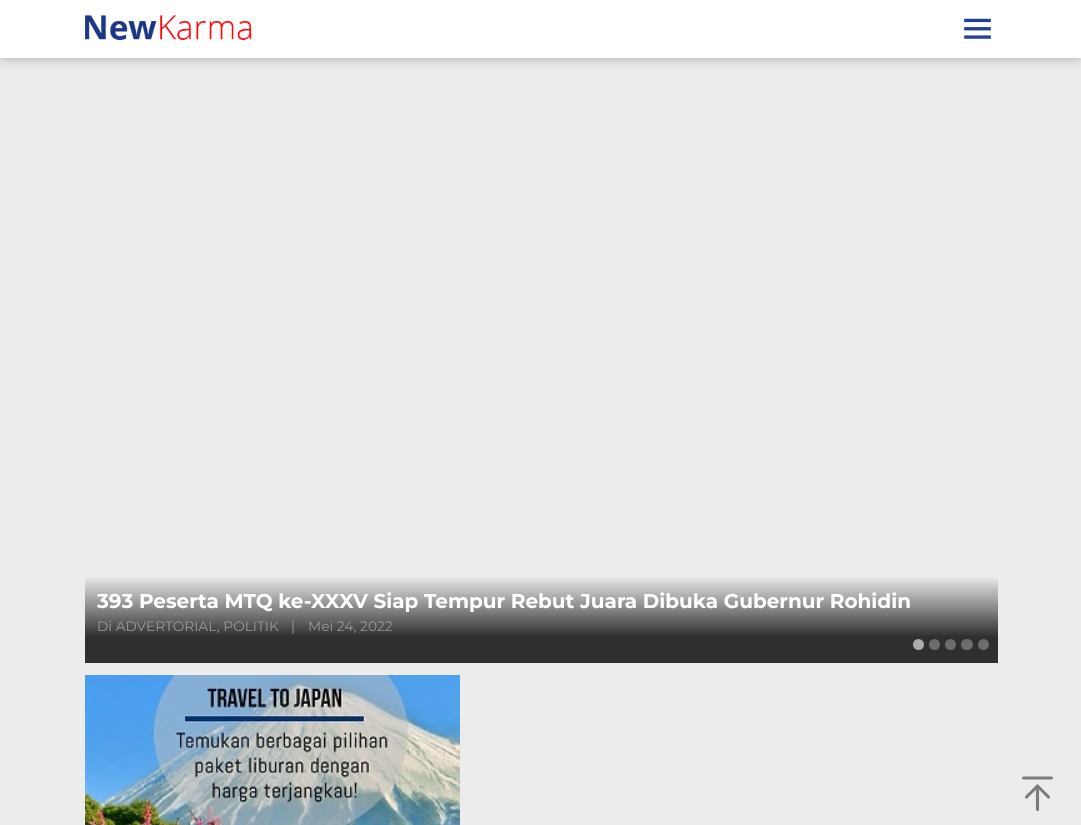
<!DOCTYPE html>
<meta charset="utf-8">
<style>body { margin: 0 } canvas { display: block }</style>
<canvas id="canvas" width="1081" height="825"></canvas>
<script type="module">
  const canvas = document.getElementById("canvas");
  const g = canvas.getContext("2d");
  g.miterLimit = 4;
  g.fontKerning = "normal";
  function drawText(s, x, y, [font, color]) {
    g.font = font;
    g.fillStyle = color;
    g.fillText(s, x, y);
  }
  function fillBox(x, y, w, h, color) {
    g.fillStyle = color;
    g.fillRect(x, y, w, h);
  }
  function fillRounded(x, y, w, h, r, color) {
    g.fillStyle = color;
    g.beginPath();
    g.roundRect(x, y, w, h, r);
    g.fill();
  }
  async function drawPicture(src, x, y, w, h) {
    const img = new Image();
    img.src = src;
    await img.decode();
    g.drawImage(img, x, y, w, h);
  }
  let gradient;

  const s1 = ["bold 20px Montserrat", "#FFFFFF"];
  const s2 = ["13.75px Montserrat", "#999999"];

  fillBox(0, 0, 1081, 825, "#ECECEC");
  g.fillStyle = "rgba(0, 0, 0, 0.3)";
  g.filter = "blur(6px)";
  g.beginPath();
  g.rect(0, 0, 1081, 58);
  g.fill();
  g.filter = "none";
  fillBox(0, 0, 1081, 58, "#FFFFFF");
  await drawPicture("pic1.png", 85, 15, 167, 26);
  await drawPicture("pic2.png", 964, 18, 27, 21);
  gradient = g.createLinearGradient(541, 576, 541, 663);
  gradient.addColorStop(0, "#ECECEC");
  gradient.addColorStop(0.7, "#2F2F2F");
  g.fillStyle = gradient;
  g.fillRect(85, 577, 913, 86);
  drawText("393 Peserta MTQ ke-XXXV Siap Tempur Rebut Juara Dibuka Gubernur Rohidin", 97, 608, s1);
  drawText("Di ADVERTORIAL, POLITIK", 97, 631, s2);
  drawText("|", 291, 631, s2);
  drawText("Mei 24, 2022", 308, 631, s2);
  g.fillStyle = "#ACACAC";
  g.beginPath();
  g.arc(918.5, 644.5, 5.5, 0, Math.PI * 2);
  g.fill();
  g.fillStyle = "#6D6D6D";
  g.beginPath();
  g.arc(934.5, 644.5, 5.5, 0, Math.PI * 2);
  g.fill();
  g.beginPath();
  g.arc(950.5, 644.5, 5.5, 0, Math.PI * 2);
  g.fill();
  fillRounded(961, 639, 12, 11, 5.5, "#6D6D6D");
  g.beginPath();
  g.arc(983.5, 644.5, 5.5, 0, Math.PI * 2);
  g.fill();
  await drawPicture("pic3.png", 85, 675, 375, 150);
  g.beginPath();
  g.moveTo(1037.5, 809.5);
  g.lineTo(1037.5, 786);
  g.moveTo(1026.5, 797);
  g.lineTo(1037.5, 786);
  g.lineTo(1048.5, 797);
  g.moveTo(1023.5, 778);
  g.lineTo(1051.5, 778);
  g.strokeStyle = "#7C7C7D";
  g.lineWidth = 3.1;
  g.lineCap = "round";
  g.lineJoin = "round";
  g.stroke();
</script>
